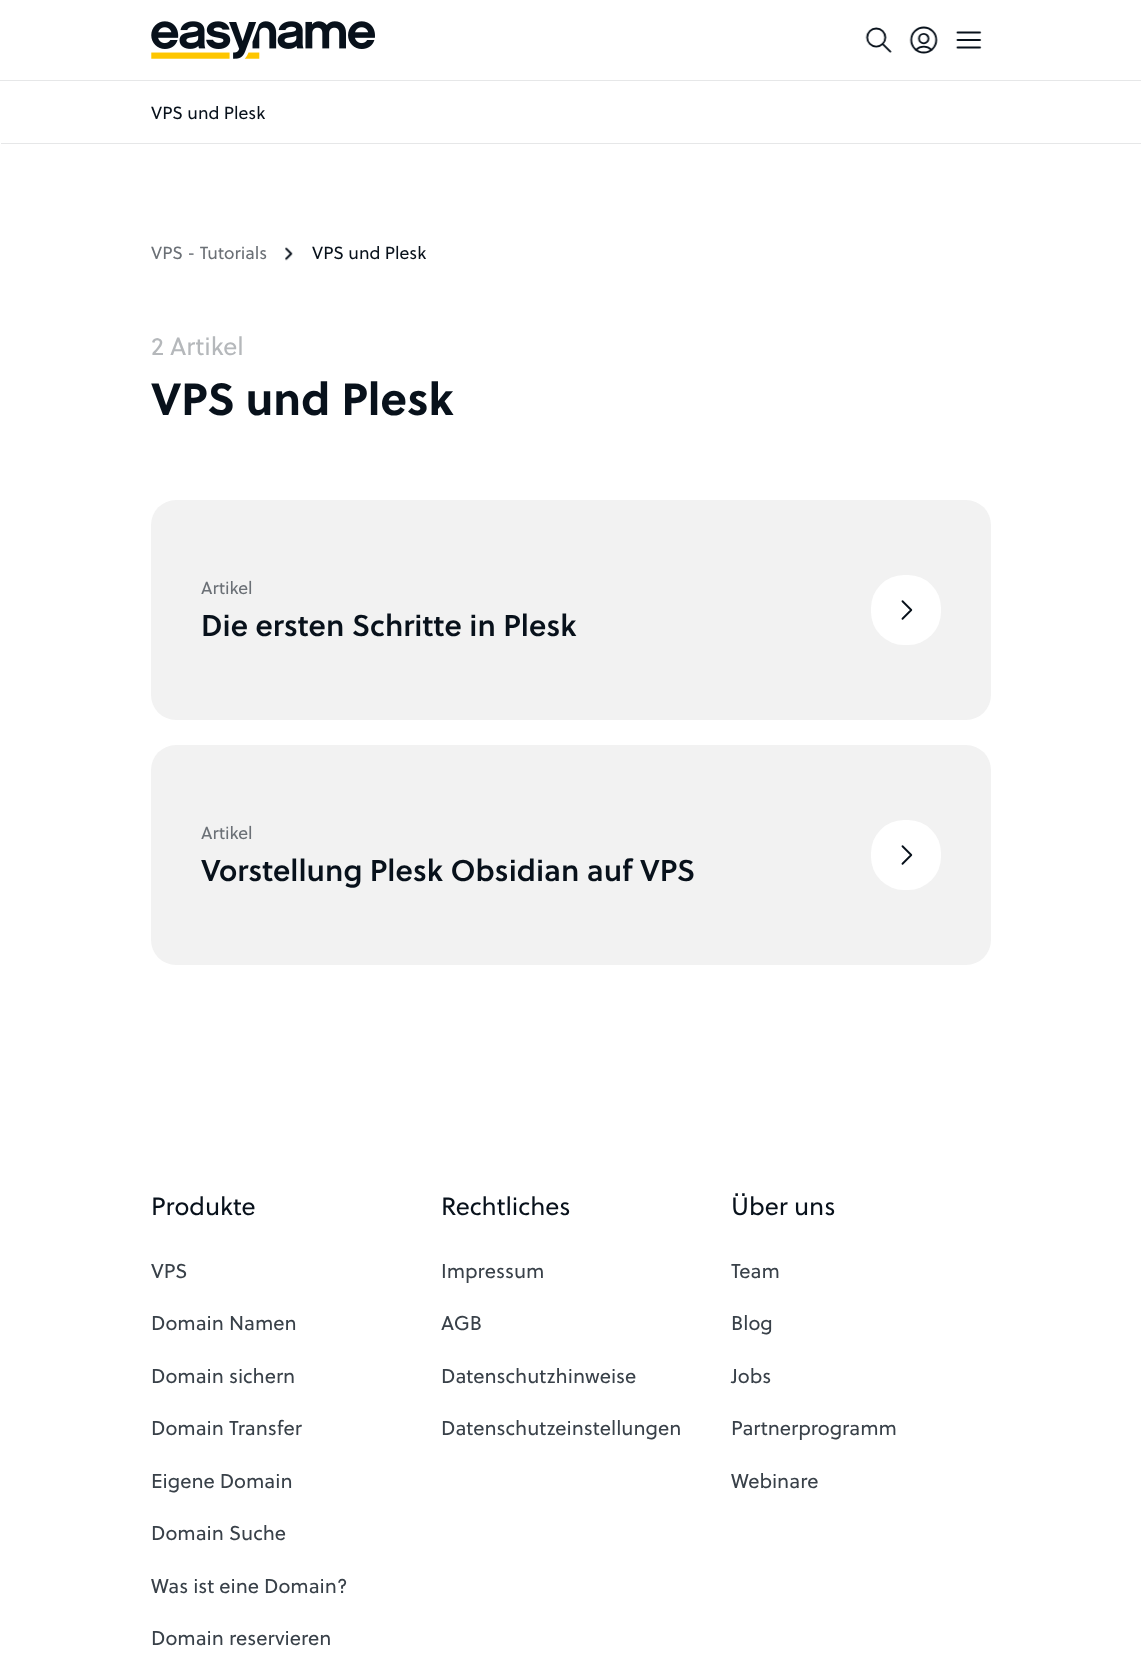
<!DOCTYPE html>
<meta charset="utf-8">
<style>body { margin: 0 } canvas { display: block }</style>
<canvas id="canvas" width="1141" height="1654"></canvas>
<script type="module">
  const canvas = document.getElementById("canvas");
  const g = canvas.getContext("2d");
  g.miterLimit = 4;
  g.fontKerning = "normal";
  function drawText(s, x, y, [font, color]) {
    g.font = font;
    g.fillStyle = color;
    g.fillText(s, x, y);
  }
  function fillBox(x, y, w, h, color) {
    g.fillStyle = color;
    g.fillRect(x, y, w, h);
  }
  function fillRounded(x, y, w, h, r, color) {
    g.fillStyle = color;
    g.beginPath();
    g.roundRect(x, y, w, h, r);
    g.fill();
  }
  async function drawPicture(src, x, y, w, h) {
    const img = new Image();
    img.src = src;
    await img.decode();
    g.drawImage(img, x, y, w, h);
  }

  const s1 = ["17.5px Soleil", "#08111B"];
  const s2 = ["17.5px Soleil", "#6B7076"];
  const s3 = ["25px Soleil", "#B5B8BB"];
  const s4 = ["bold 45px Soleil", "#08111B"];
  const s5 = ["600 30px Soleil", "#08111B"];
  const s6 = ["25px Soleil", "#08111B"];
  const s7 = ["20px Soleil", "#394149"];

  fillBox(0, 0, 1141, 1654, "#FFFFFF");
  fillBox(0, 80, 1141, 1, "#E6E7E8");
  await drawPicture("pic1.png", 151, 21, 224, 38);
  await drawPicture("pic2.png", 865, 27, 27, 26);
  await drawPicture("pic3.png", 909, 26, 29, 28);
  await drawPicture("pic4.png", 955, 31, 27, 18);
  drawText("VPS und Plesk", 151, 119, s1);
  fillBox(1, 143, 1140, 1, "#E6E7E8");
  drawText("VPS - Tutorials", 151, 259, s2);
  await drawPicture("pic5.png", 285, 247, 8, 14);
  drawText("VPS und Plesk", 312, 259, s1);
  drawText("2 Artikel", 151, 355, s3);
  drawText("VPS und Plesk", 151, 415, s4);
  fillRounded(151, 500, 840, 220, 25, "#F2F2F2");
  drawText("Artikel", 201, 594, s2);
  drawText("Die ersten Schritte in Plesk", 201, 636, s5);
  fillRounded(871, 575, 70, 70, 33, "#FFFFFF");
  await drawPicture("pic6.png", 901, 600, 12, 20);
  fillRounded(151, 745, 840, 220, 25, "#F2F2F2");
  drawText("Artikel", 201, 839, s2);
  drawText("Vorstellung Plesk Obsidian auf VPS", 201, 881, s5);
  fillRounded(871, 820, 70, 70, 33, "#FFFFFF");
  await drawPicture("pic6.png", 901, 845, 12, 20);
  drawText("Produkte", 151, 1215, s6);
  drawText("VPS", 151, 1278, s7);
  drawText("Domain Namen", 151, 1330, s7);
  drawText("Domain sichern", 151, 1383, s7);
  drawText("Domain Transfer", 151, 1435, s7);
  drawText("Eigene Domain", 151, 1488, s7);
  drawText("Domain Suche", 151, 1540, s7);
  drawText("Was ist eine Domain?", 151, 1593, s7);
  drawText("Domain reservieren", 151, 1645, s7);
  drawText("Rechtliches", 441, 1215, s6);
  drawText("Impressum", 441, 1278, s7);
  drawText("AGB", 441, 1330, s7);
  drawText("Datenschutzhinweise", 441, 1383, s7);
  drawText("Datenschutzeinstellungen", 441, 1435, s7);
  drawText("Über uns", 731, 1215, s6);
  drawText("Team", 731, 1278, s7);
  drawText("Blog", 731, 1330, s7);
  drawText("Jobs", 731, 1383, s7);
  drawText("Partnerprogramm", 731, 1435, s7);
  drawText("Webinare", 731, 1488, s7);
</script>
